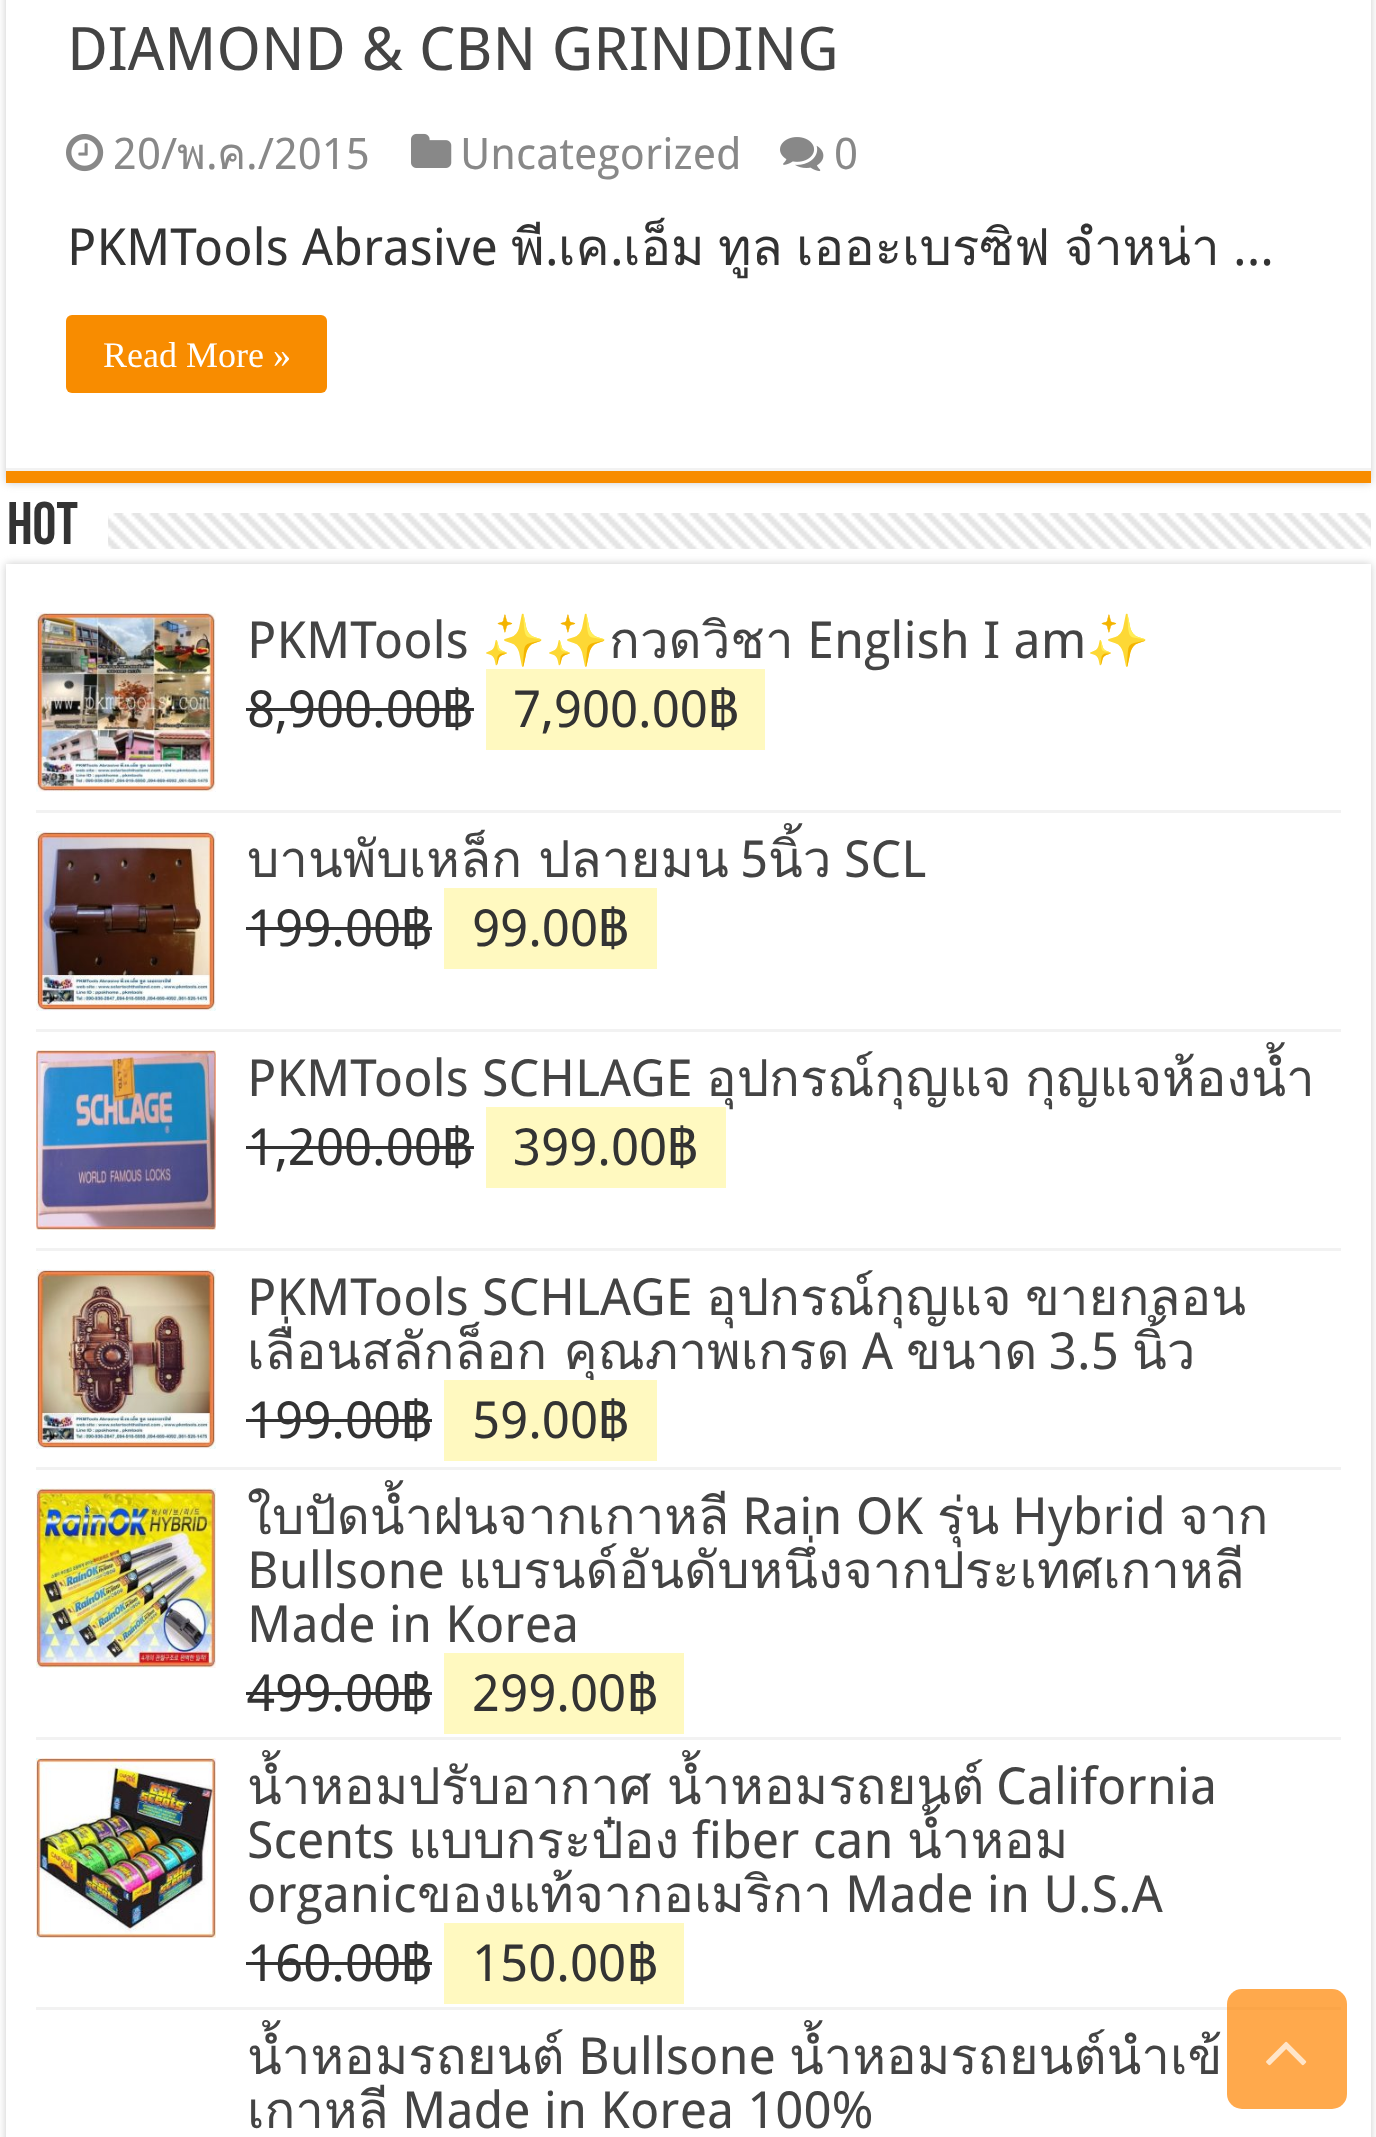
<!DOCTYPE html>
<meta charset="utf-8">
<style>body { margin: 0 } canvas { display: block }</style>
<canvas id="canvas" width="1376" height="2137"></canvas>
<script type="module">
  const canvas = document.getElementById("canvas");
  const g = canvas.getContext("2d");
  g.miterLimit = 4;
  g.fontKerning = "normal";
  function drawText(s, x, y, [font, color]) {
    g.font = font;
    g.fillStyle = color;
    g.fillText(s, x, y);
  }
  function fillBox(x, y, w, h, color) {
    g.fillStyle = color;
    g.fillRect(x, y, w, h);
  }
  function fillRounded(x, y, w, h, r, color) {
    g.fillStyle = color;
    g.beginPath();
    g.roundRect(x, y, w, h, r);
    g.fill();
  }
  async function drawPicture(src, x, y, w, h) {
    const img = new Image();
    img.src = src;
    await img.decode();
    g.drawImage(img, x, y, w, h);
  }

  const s1 = ["60px Droid Sans", "#444444"];
  const s2 = ["43.5px Droid Sans", "#888888"];
  const s3 = ["43.5px Loma", "#888888"];
  const s4 = ["51px Droid Sans", "#333333"];
  const s5 = ["51px Loma", "#333333"];
  const s6 = ["36px Liberation Serif", "#FFFFFF"];
  const s7 = ["bold 60px Bebas Neue", "#333333"];
  const s8 = ["51px Droid Sans", "#444444"];
  const s9 = ["51px Noto Color Emoji", "#444444"];
  const s10 = ["51px Loma", "#444444"];

  fillBox(0, 0, 1376, 2137, "#FFFFFF");
  g.save();
  g.beginPath();
  g.moveTo(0, 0);
  g.lineTo(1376, 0);
  g.lineTo(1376, 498);
  g.lineTo(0, 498);
  g.closePath();
  g.moveTo(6, -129);
  g.lineTo(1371, -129);
  g.lineTo(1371, 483);
  g.lineTo(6, 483);
  g.closePath();
  g.clip("evenodd");
  g.fillStyle = "#CACACA";
  g.filter = "blur(4.5px)";
  g.beginPath();
  g.rect(6, -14, 1365, 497);
  g.fill();
  g.filter = "none";
  g.restore();
  fillBox(6, 471, 1365, 12, "#F88C00");
  fillBox(6, 468, 1365, 3, "#F2F2F2");
  drawText("DIAMOND & CBN GRINDING", 67, 70, s1);
  await drawPicture("pic1.png", 66, 133, 38, 39);
  drawText("20/", 113, 169, s2);
  drawText("พ", 177, 169, s3);
  drawText(".", 206, 169, s2);
  drawText("ค", 217, 169, s3);
  drawText("./2015", 246, 169, s2);
  await drawPicture("pic2.png", 411, 133, 41, 35);
  drawText("Uncategorized", 460, 169, s2);
  await drawPicture("pic3.png", 780, 137, 44, 35);
  drawText("0", 834, 169, s2);
  drawText("PKMTools Abrasive", 67, 265, s4);
  drawText("พี", 511, 265, s5);
  drawText(".", 545, 265, s4);
  drawText("เค", 558, 265, s5);
  drawText(".", 610, 265, s4);
  drawText("เอ็ม", 623, 265, s5);
  drawText("ทูล", 718, 265, s5);
  drawText("เออะเบรซิฟ", 796, 265, s5);
  drawText("จำหน่า", 1064, 265, s5);
  drawText("...", 1233, 265, s4);
  fillRounded(66, 315, 261, 78, 6, "#F88C00");
  drawText("Read More »", 103, 367, s6);
  drawText("HOT", 7, 544, s7);
  await drawPicture("pic4.png", 108, 513, 1263, 36);
  g.save();
  g.beginPath();
  g.moveTo(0, 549);
  g.lineTo(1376, 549);
  g.lineTo(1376, 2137);
  g.lineTo(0, 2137);
  g.closePath();
  g.moveTo(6, 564);
  g.lineTo(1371, 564);
  g.lineTo(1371, 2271);
  g.lineTo(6, 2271);
  g.closePath();
  g.clip("evenodd");
  g.fillStyle = "#CACACA";
  g.filter = "blur(4.5px)";
  g.beginPath();
  g.rect(6, 564, 1365, 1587);
  g.fill();
  g.filter = "none";
  g.restore();
  fillBox(36, 810, 1305, 3, "#F2F2F2");
  await drawPicture("pic5.png", 36, 612, 180, 180);
  drawText("PKMTools", 247, 658, s8);
  drawText("✨✨", 482, 658, s9);
  drawText("กวดวิชา", 609, 658, s10);
  drawText("English I am", 807, 658, s8);
  drawText("✨", 1086, 658, s9);
  drawText("8,900.00", 247, 727, s4);
  drawText("฿", 442, 727, s5);
  fillBox(246, 708, 228, 3, "#333333");
  fillBox(486, 669, 279, 81, "#FFF9C0");
  drawText("7,900.00", 513, 727, s4);
  drawText("฿", 708, 727, s5);
  fillBox(36, 1029, 1305, 3, "#F2F2F2");
  await drawPicture("pic6.png", 36, 831, 180, 180);
  g.wordSpacing = "-1px";
  drawText("บานพับเหล็ก ปลายมน", 247, 877, s10);
  g.wordSpacing = "0px";
  drawText("5", 740, 877, s8);
  drawText("นิ้ว", 768, 877, s10);
  drawText("SCL", 844, 877, s8);
  drawText("199.00", 247, 946, s4);
  fillBox(246, 927, 186, 3, "#333333");
  drawText("฿", 401, 946, s5);
  fillBox(444, 888, 213, 81, "#FFF9C0");
  drawText("99.00", 472, 946, s4);
  drawText("฿", 598, 946, s5);
  fillBox(36, 1248, 1305, 3, "#F2F2F2");
  await drawPicture("pic7.png", 36, 1050, 180, 180);
  drawText("PKMTools SCHLAGE", 247, 1096, s8);
  drawText("อุปกรณ์กุญแจ", 706, 1096, s10);
  drawText("กุญแจห้องน้ำ", 1025, 1096, s10);
  drawText("1,200.00", 247, 1165, s4);
  drawText("฿", 442, 1165, s5);
  fillBox(246, 1146, 228, 3, "#333333");
  fillBox(486, 1107, 240, 81, "#FFF9C0");
  drawText("399.00", 513, 1165, s4);
  drawText("฿", 667, 1165, s5);
  fillBox(36, 1467, 1305, 3, "#F2F2F2");
  await drawPicture("pic8.png", 36, 1269, 180, 180);
  drawText("PKMTools SCHLAGE", 247, 1315, s8);
  drawText("อุปกรณ์กุญแจ", 706, 1315, s10);
  drawText("ขายกลอน", 1025, 1315, s10);
  g.wordSpacing = "-1px";
  drawText("เลื่อนสลักล็อก คุณภาพเกรด", 247, 1369, s10);
  g.wordSpacing = "0px";
  drawText("A", 862, 1369, s8);
  drawText("ขนาด", 906, 1369, s10);
  drawText("3.5", 1049, 1369, s8);
  drawText("นิ้ว", 1132, 1369, s10);
  drawText("199.00", 247, 1438, s4);
  fillBox(246, 1419, 186, 3, "#333333");
  drawText("฿", 401, 1438, s5);
  fillBox(444, 1380, 213, 81, "#FFF9C0");
  drawText("59.00", 472, 1438, s4);
  drawText("฿", 598, 1438, s5);
  fillBox(36, 1737, 1305, 3, "#F2F2F2");
  await drawPicture("pic9.png", 36, 1488, 180, 180);
  drawText("ใบปัดน้ำฝนจากเกาหลี", 247, 1534, s10);
  drawText("Rain OK", 742, 1534, s8);
  drawText("รุ่น", 937, 1534, s10);
  drawText("Hybrid", 1012, 1534, s8);
  drawText("จาก", 1179, 1534, s10);
  drawText("Bullsone", 247, 1588, s8);
  drawText("แบรนด์อันดับหนึ่งจากประเทศเกาหลี", 458, 1588, s10);
  drawText("Made in Korea", 247, 1642, s8);
  drawText("499.00", 247, 1711, s4);
  fillBox(246, 1692, 186, 3, "#333333");
  drawText("฿", 401, 1711, s5);
  fillBox(444, 1653, 240, 81, "#FFF9C0");
  drawText("299.00", 472, 1711, s4);
  drawText("฿", 627, 1711, s5);
  fillBox(36, 2007, 1305, 3, "#F2F2F2");
  await drawPicture("pic10.png", 36, 1758, 180, 180);
  g.wordSpacing = "-2px";
  drawText("น้ำหอมปรับอากาศ น้ำหอมรถยนต์", 247, 1804, s10);
  g.wordSpacing = "0px";
  drawText("California", 996, 1804, s8);
  drawText("Scents", 247, 1858, s8);
  drawText("แบบกระป๋อง", 408, 1858, s10);
  drawText("fiber can", 692, 1858, s8);
  drawText("น้ำหอม", 907, 1858, s10);
  drawText("organic", 247, 1912, s8);
  drawText("ของแท้จากอเมริกา", 417, 1912, s10);
  drawText("Made in U.S.A", 845, 1912, s8);
  drawText("160.00", 247, 1981, s4);
  fillBox(246, 1962, 186, 3, "#333333");
  drawText("฿", 401, 1981, s5);
  fillBox(444, 1923, 240, 81, "#FFF9C0");
  drawText("150.00", 472, 1981, s4);
  drawText("฿", 627, 1981, s5);
  drawText("น้ำหอมรถยนต์", 247, 2074, s10);
  drawText("Bullsone", 578, 2074, s8);
  drawText("น้ำหอมรถยนต์นำเข้", 789, 2074, s10);
  drawText("เกาหลี", 247, 2128, s10);
  drawText("Made in Korea 100%", 402, 2128, s8);
  fillRounded(1227, 1989, 120, 120, 15, "rgba(255, 133, 0, 0.7)");
  await drawPicture("pic11.png", 1266, 2041, 41, 25);
</script>
